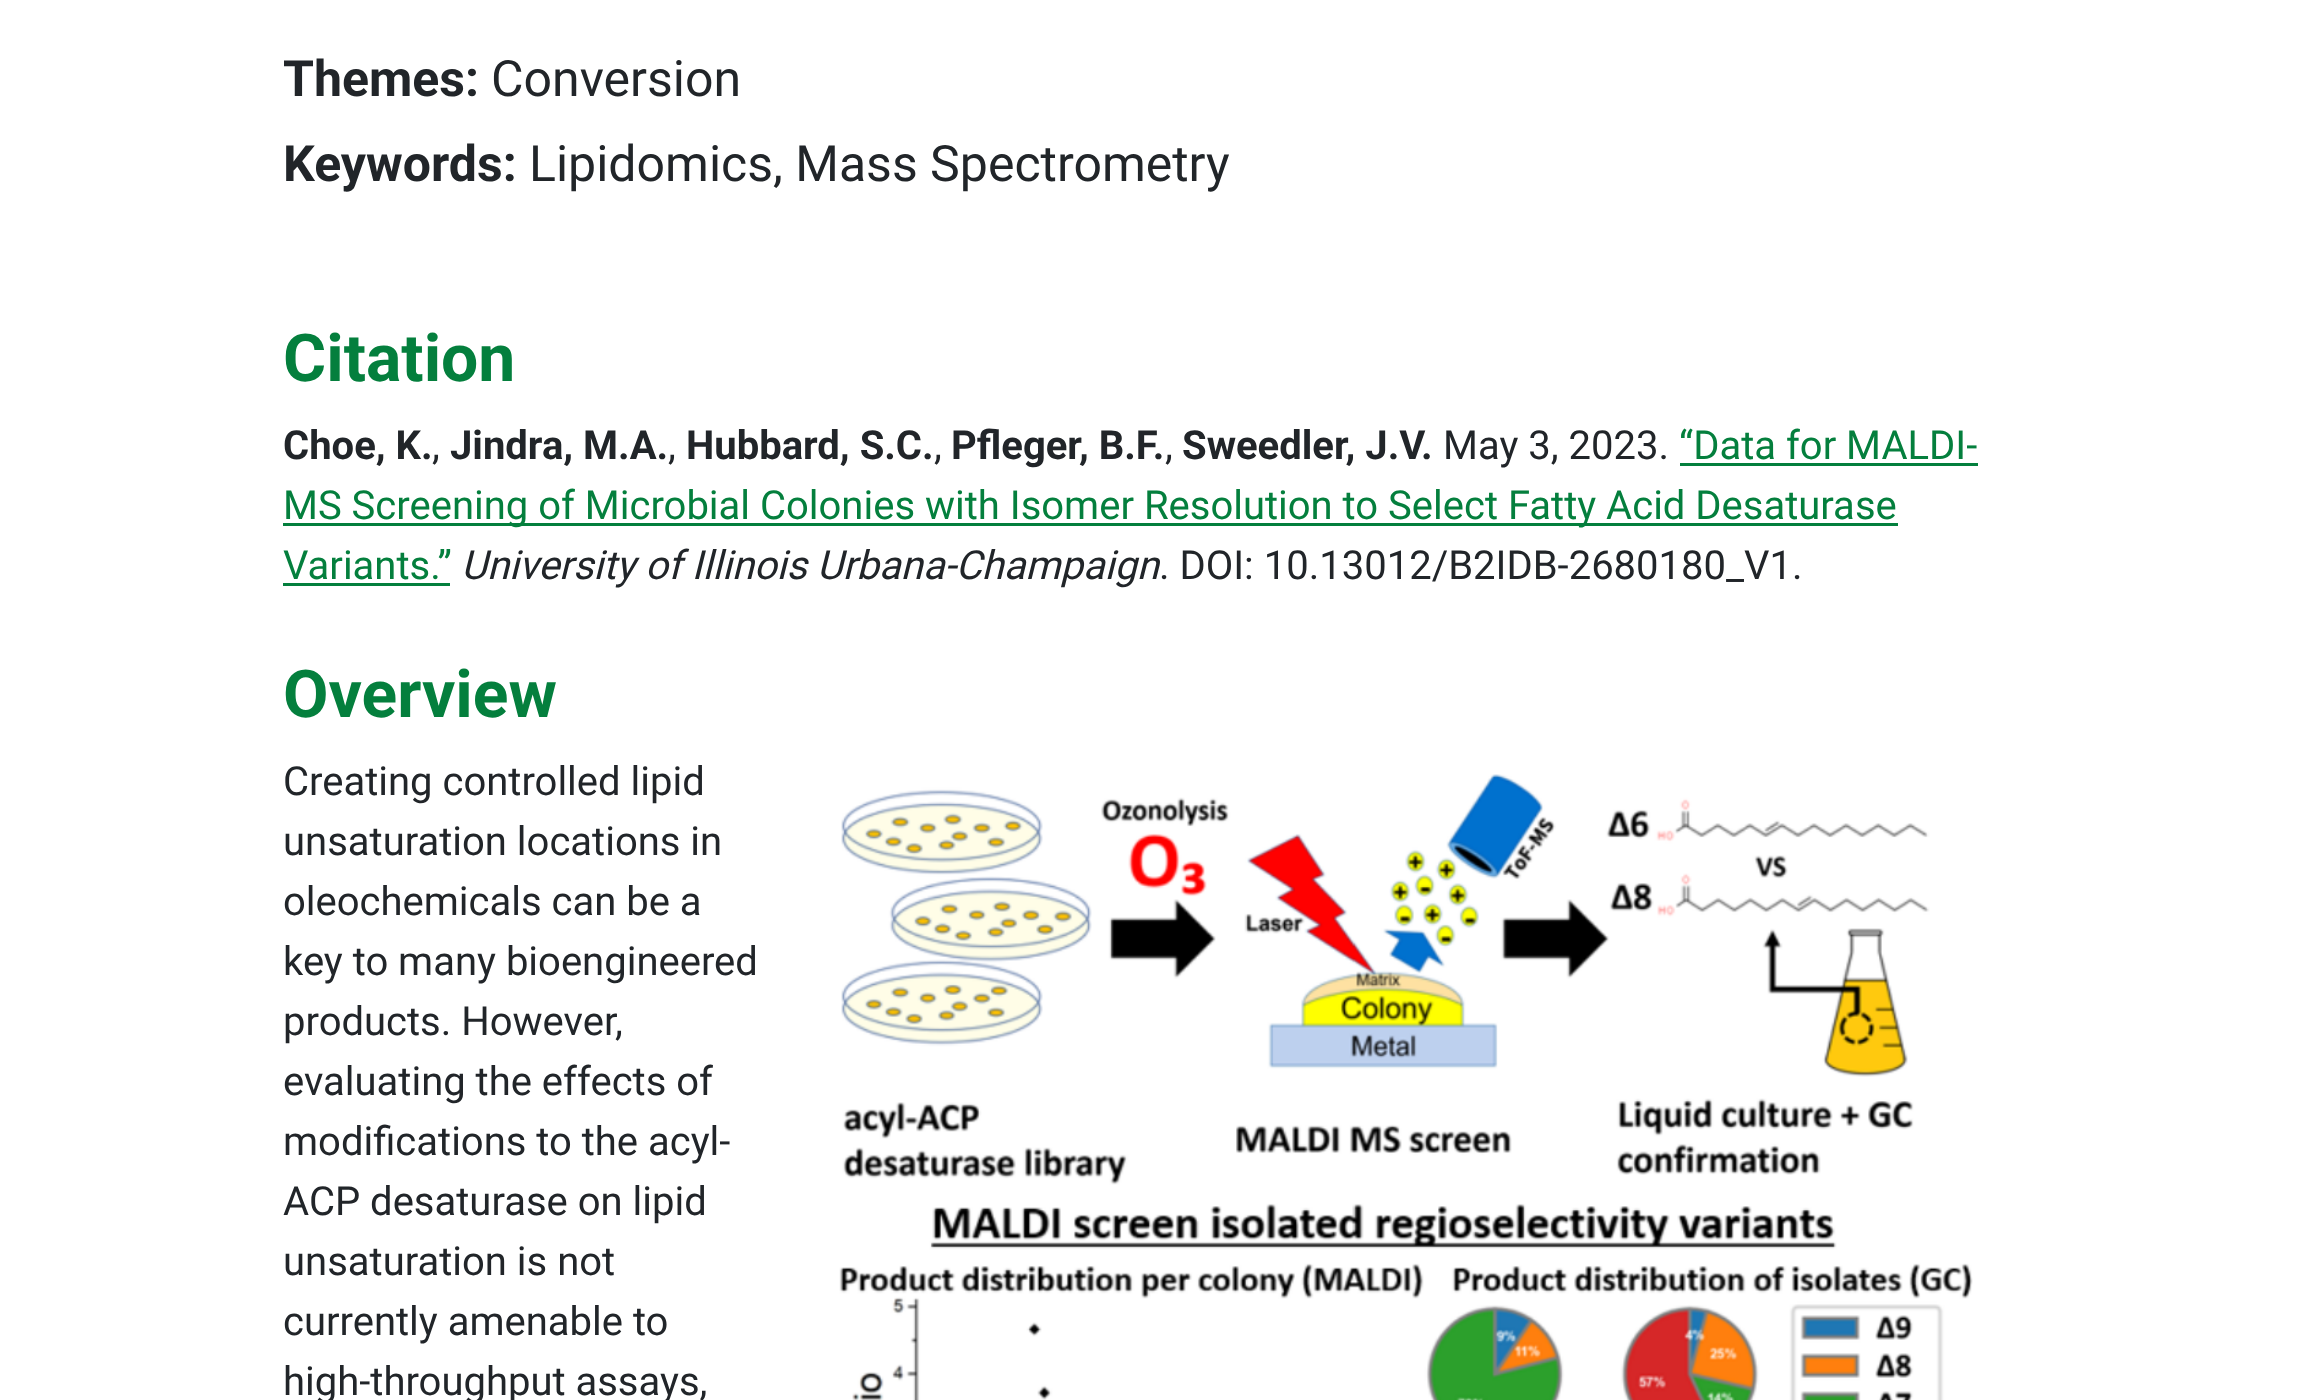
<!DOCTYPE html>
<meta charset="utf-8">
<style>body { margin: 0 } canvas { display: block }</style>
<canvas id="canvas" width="2304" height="1400"></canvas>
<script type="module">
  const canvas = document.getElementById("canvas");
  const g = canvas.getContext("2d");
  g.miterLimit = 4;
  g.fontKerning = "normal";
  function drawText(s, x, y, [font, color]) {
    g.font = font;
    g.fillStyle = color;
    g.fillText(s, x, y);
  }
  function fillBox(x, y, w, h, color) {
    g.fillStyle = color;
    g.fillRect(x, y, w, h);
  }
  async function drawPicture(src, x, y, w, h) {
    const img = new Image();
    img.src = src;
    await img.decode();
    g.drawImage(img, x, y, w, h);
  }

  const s1 = ["bold 50px Roboto", "#212529"];
  const s2 = ["50px Roboto", "#212529"];
  const s3 = ["bold 66px Roboto", "#047F3D"];
  const s4 = ["bold 40px Roboto", "#212529"];
  const s5 = ["40px Roboto", "#212529"];
  const s6 = ["40px Roboto", "#047F3D"];
  const s7 = ["italic 40px Roboto", "#212529"];

  fillBox(0, 0, 2304, 1400, "#FFFFFF");
  drawText("Themes:", 283, 96, s1);
  drawText("Conversion", 491, 96, s2);
  drawText("Keywords:", 283, 181, s1);
  drawText("Lipidomics, Mass Spectrometry", 529, 181, s2);
  drawText("Citation", 283, 381, s3);
  drawText("Choe, K.", 283, 459, s4);
  drawText(",", 432, 459, s5);
  drawText("Jindra, M.A.", 450, 459, s4);
  drawText(",", 668, 459, s5);
  drawText("Hubbard, S.C.", 686, 459, s4);
  drawText(",", 934, 459, s5);
  drawText("Pfleger, B.F.", 951, 459, s4);
  drawText(",", 1165, 459, s5);
  drawText("Sweedler, J.V.", 1182, 459, s4);
  drawText("May 3, 2023.", 1443, 459, s5);
  drawText("“Data for MALDI-", 1679, 459, s6);
  fillBox(1680, 463, 298, 3, "#047F3D");
  fillBox(283, 523, 1615, 3, "#047F3D");
  drawText("MS Screening of Microbial Colonies with Isomer Resolution to Select Fatty Acid Desaturase", 283, 519, s6);
  drawText("Variants.”", 283, 579, s6);
  fillBox(283, 583, 167, 3, "#047F3D");
  drawText("University of Illinois Urbana-Champaign", 461, 579, s7);
  drawText(". DOI: 10.13012/B2IDB-2680180_V1.", 1159, 579, s5);
  drawText("Overview", 283, 717, s3);
  drawText("Creating controlled lipid", 283, 795, s5);
  drawText("unsaturation locations in", 283, 855, s5);
  drawText("oleochemicals can be a", 283, 915, s5);
  drawText("key to many bioengineered", 283, 975, s5);
  drawText("products. However,", 283, 1035, s5);
  drawText("evaluating the effects of", 283, 1095, s5);
  drawText("modifications to the acyl-", 283, 1155, s5);
  drawText("ACP desaturase on lipid", 283, 1215, s5);
  drawText("unsaturation is not", 283, 1275, s5);
  drawText("currently amenable to", 283, 1335, s5);
  drawText("high-throughput assays,", 283, 1395, s5);
  await drawPicture("pic1.png", 839, 774, 1134, 626);
</script>
